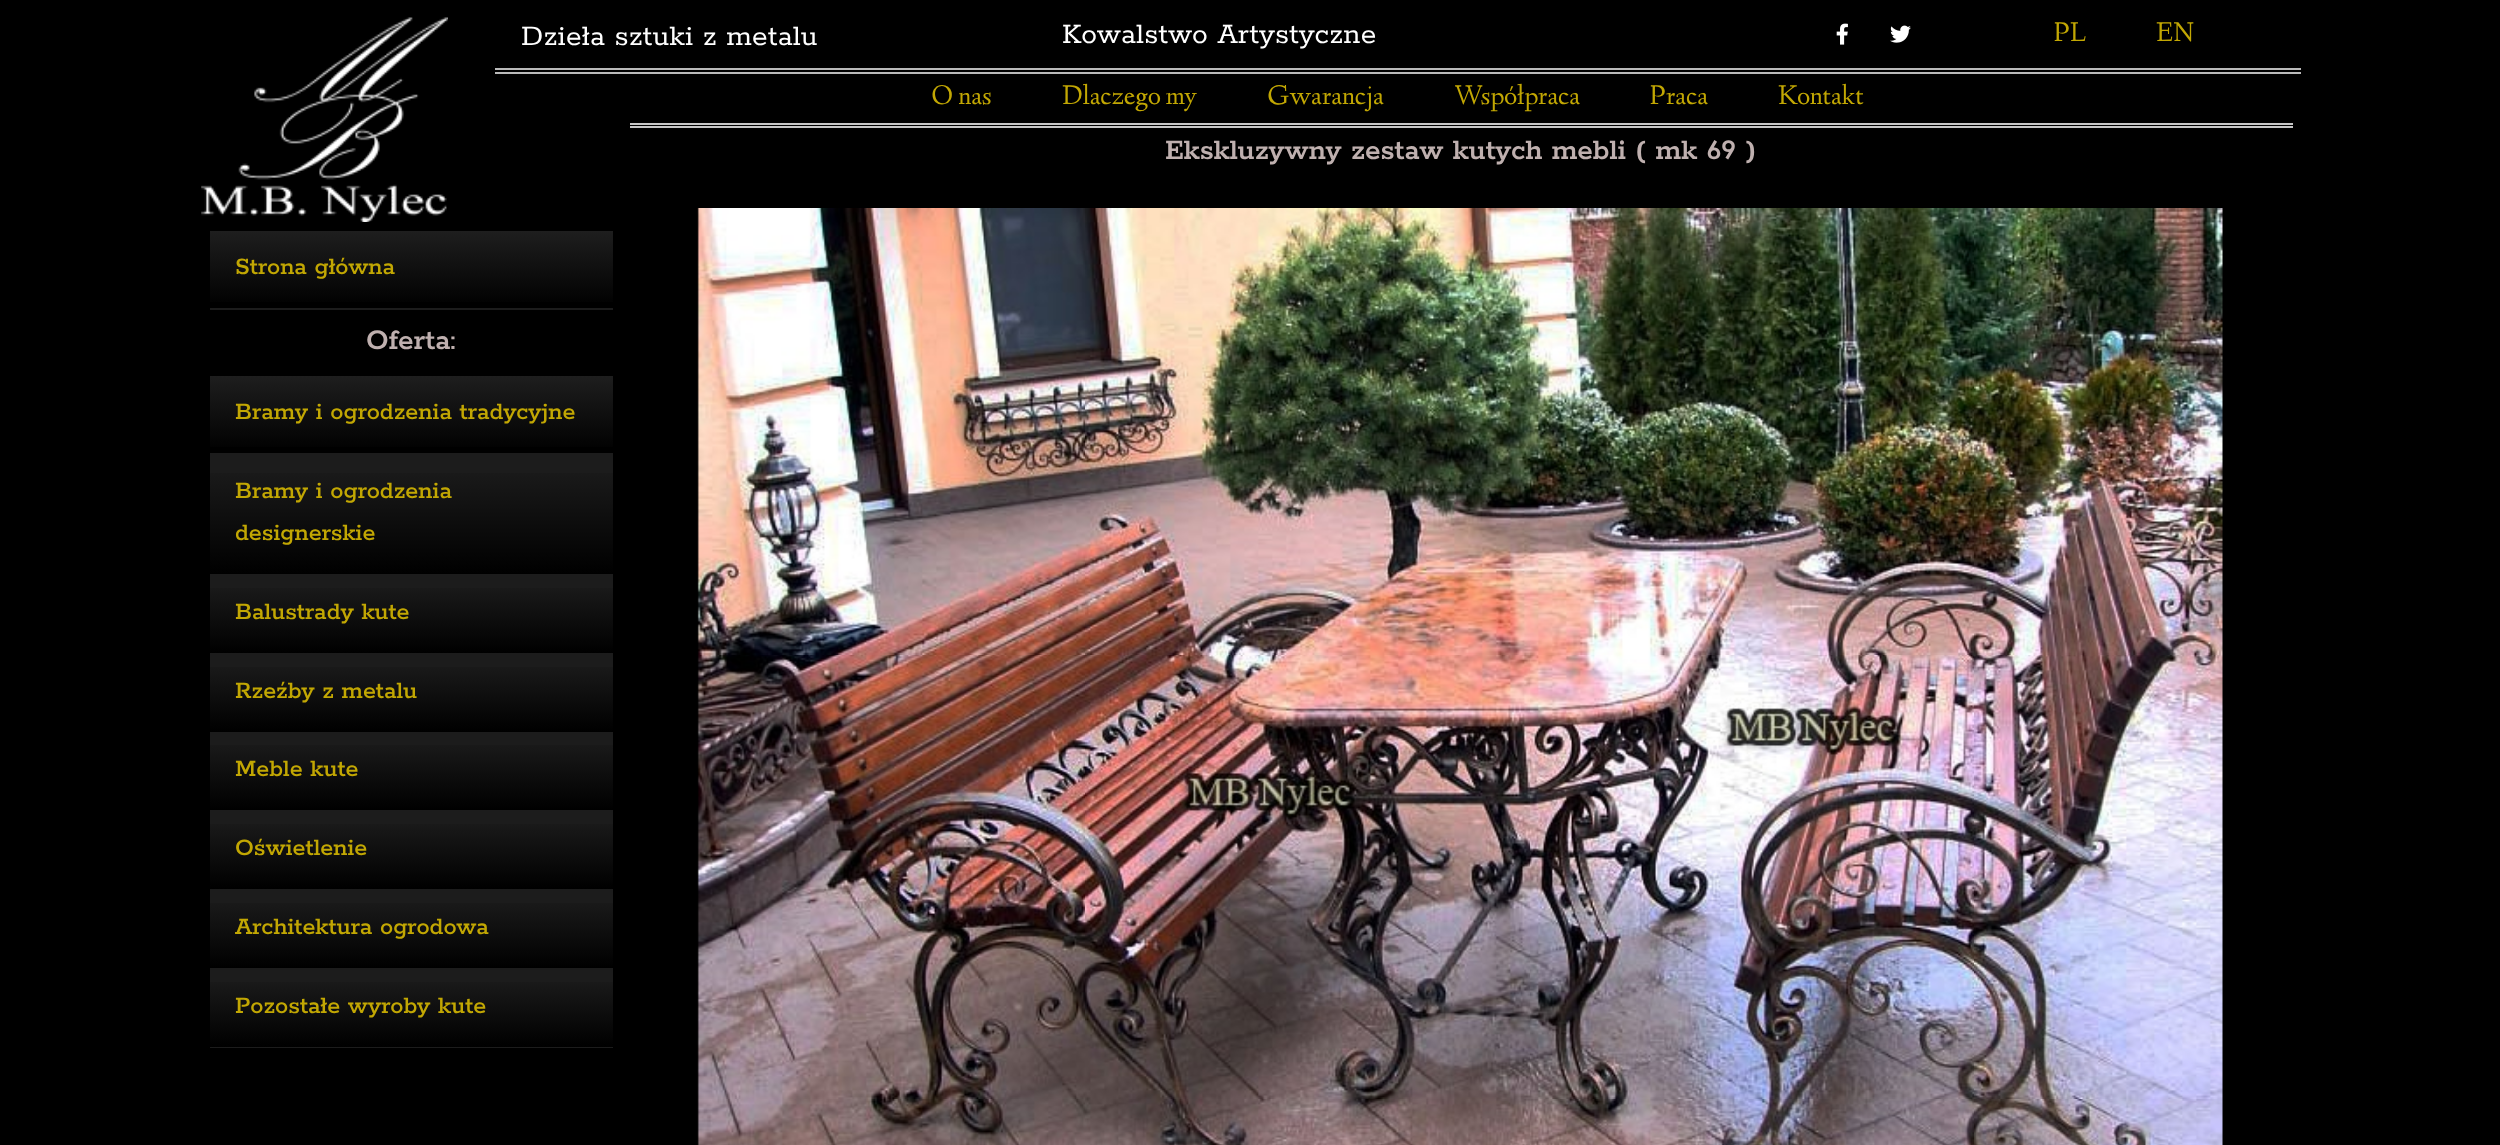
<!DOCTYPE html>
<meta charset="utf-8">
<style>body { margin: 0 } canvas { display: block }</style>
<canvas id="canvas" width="2500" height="1145"></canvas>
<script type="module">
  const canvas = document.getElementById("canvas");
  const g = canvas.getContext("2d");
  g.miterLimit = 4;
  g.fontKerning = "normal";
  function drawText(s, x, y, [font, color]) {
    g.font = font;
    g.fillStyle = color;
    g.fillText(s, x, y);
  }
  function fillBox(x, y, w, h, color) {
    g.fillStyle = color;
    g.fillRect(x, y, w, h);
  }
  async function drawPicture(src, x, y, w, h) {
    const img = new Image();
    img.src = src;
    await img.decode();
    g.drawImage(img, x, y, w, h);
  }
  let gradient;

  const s1 = ["31.5px Rokkitt", "#FFFFFF"];
  const s2 = ["28px Linden Hill", "#C2A703"];
  const s3 = ["600 31.5px Rokkitt", "#BFB0AF"];
  const s4 = ["500 26.25px Rokkitt", "#C2A703"];

  fillBox(0, 0, 2500, 1145, "#000000");
  await drawPicture("pic1.png", 201, 17, 247, 205);
  g.letterSpacing = "0.35px";
  drawText("Dzieła sztuki z metalu", 521, 45, s1);
  drawText("Kowalstwo Artystyczne", 1062, 43, s1);
  await drawPicture("pic2.png", 1836, 23, 12, 22);
  await drawPicture("pic3.png", 1890, 25, 21, 18);
  g.letterSpacing = "0px";
  drawText("PL", 2054, 41, s2);
  drawText("EN", 2156, 41, s2);
  fillBox(495, 68, 1806, 2, "#BABABA");
  fillBox(495, 72, 1806, 2, "#BABABA");
  drawText("O nas", 931, 104, s2);
  drawText("Dlaczego my", 1062, 104, s2);
  drawText("Gwarancja", 1267, 104, s2);
  drawText("Współpraca", 1454, 104, s2);
  drawText("Praca", 1650, 104, s2);
  drawText("Kontakt", 1778, 104, s2);
  fillBox(630, 123, 1663, 2, "#C6C6C6");
  fillBox(630, 126, 1663, 2, "#C6C6C6");
  drawText("Ekskluzywny zestaw kutych mebli ( mk 69 )", 1165, 159, s3);
  await drawPicture("pic4.png", 697, 208, 1526, 937);
  fillBox(210, 308, 403, 2, "#1C1C1C");
  gradient = g.createLinearGradient(411, 231, 411, 308);
  gradient.addColorStop(0, "#1E1E1E");
  gradient.addColorStop(1, "#000000");
  g.fillStyle = gradient;
  g.fillRect(210, 231, 403, 71);
  drawText("Strona główna", 235, 274, s4);
  drawText("Oferta:", 366, 349, s3);
  fillBox(210, 453, 403, 595, "#1C1C1C");
  gradient = g.createLinearGradient(411, 376, 411, 453);
  gradient.addColorStop(0, "#1E1E1E");
  gradient.addColorStop(1, "#000000");
  g.fillStyle = gradient;
  g.fillRect(210, 376, 403, 71);
  drawText("Bramy i ogrodzenia tradycyjne", 235, 419, s4);
  gradient = g.createLinearGradient(411, 455, 411, 574);
  gradient.addColorStop(0, "#1E1E1E");
  gradient.addColorStop(1, "#000000");
  g.fillStyle = gradient;
  g.fillRect(210, 473, 403, 101);
  drawText("Bramy i ogrodzenia", 235, 498, s4);
  drawText("designerskie", 235, 540, s4);
  gradient = g.createLinearGradient(411, 576, 411, 653);
  gradient.addColorStop(0, "#1E1E1E");
  gradient.addColorStop(1, "#000000");
  g.fillStyle = gradient;
  g.fillRect(210, 588, 403, 65);
  drawText("Balustrady kute", 235, 619, s4);
  gradient = g.createLinearGradient(411, 655, 411, 732);
  gradient.addColorStop(0, "#1E1E1E");
  gradient.addColorStop(1, "#000000");
  g.fillStyle = gradient;
  g.fillRect(210, 667, 403, 65);
  drawText("Rzeźby z metalu", 235, 698, s4);
  gradient = g.createLinearGradient(411, 733, 411, 810);
  gradient.addColorStop(0, "#1E1E1E");
  gradient.addColorStop(1, "#000000");
  g.fillStyle = gradient;
  g.fillRect(210, 745, 403, 65);
  drawText("Meble kute", 235, 776, s4);
  gradient = g.createLinearGradient(411, 812, 411, 889);
  gradient.addColorStop(0, "#1E1E1E");
  gradient.addColorStop(1, "#000000");
  g.fillStyle = gradient;
  g.fillRect(210, 824, 403, 65);
  drawText("Oświetlenie", 235, 855, s4);
  gradient = g.createLinearGradient(411, 891, 411, 968);
  gradient.addColorStop(0, "#1E1E1E");
  gradient.addColorStop(1, "#000000");
  g.fillStyle = gradient;
  g.fillRect(210, 903, 403, 65);
  drawText("Architektura ogrodowa", 235, 934, s4);
  gradient = g.createLinearGradient(411, 970, 411, 1047);
  gradient.addColorStop(0, "#1E1E1E");
  gradient.addColorStop(1, "#000000");
  g.fillStyle = gradient;
  g.fillRect(210, 982, 403, 65);
  drawText("Pozostałe wyroby kute", 235, 1013, s4);
</script>
